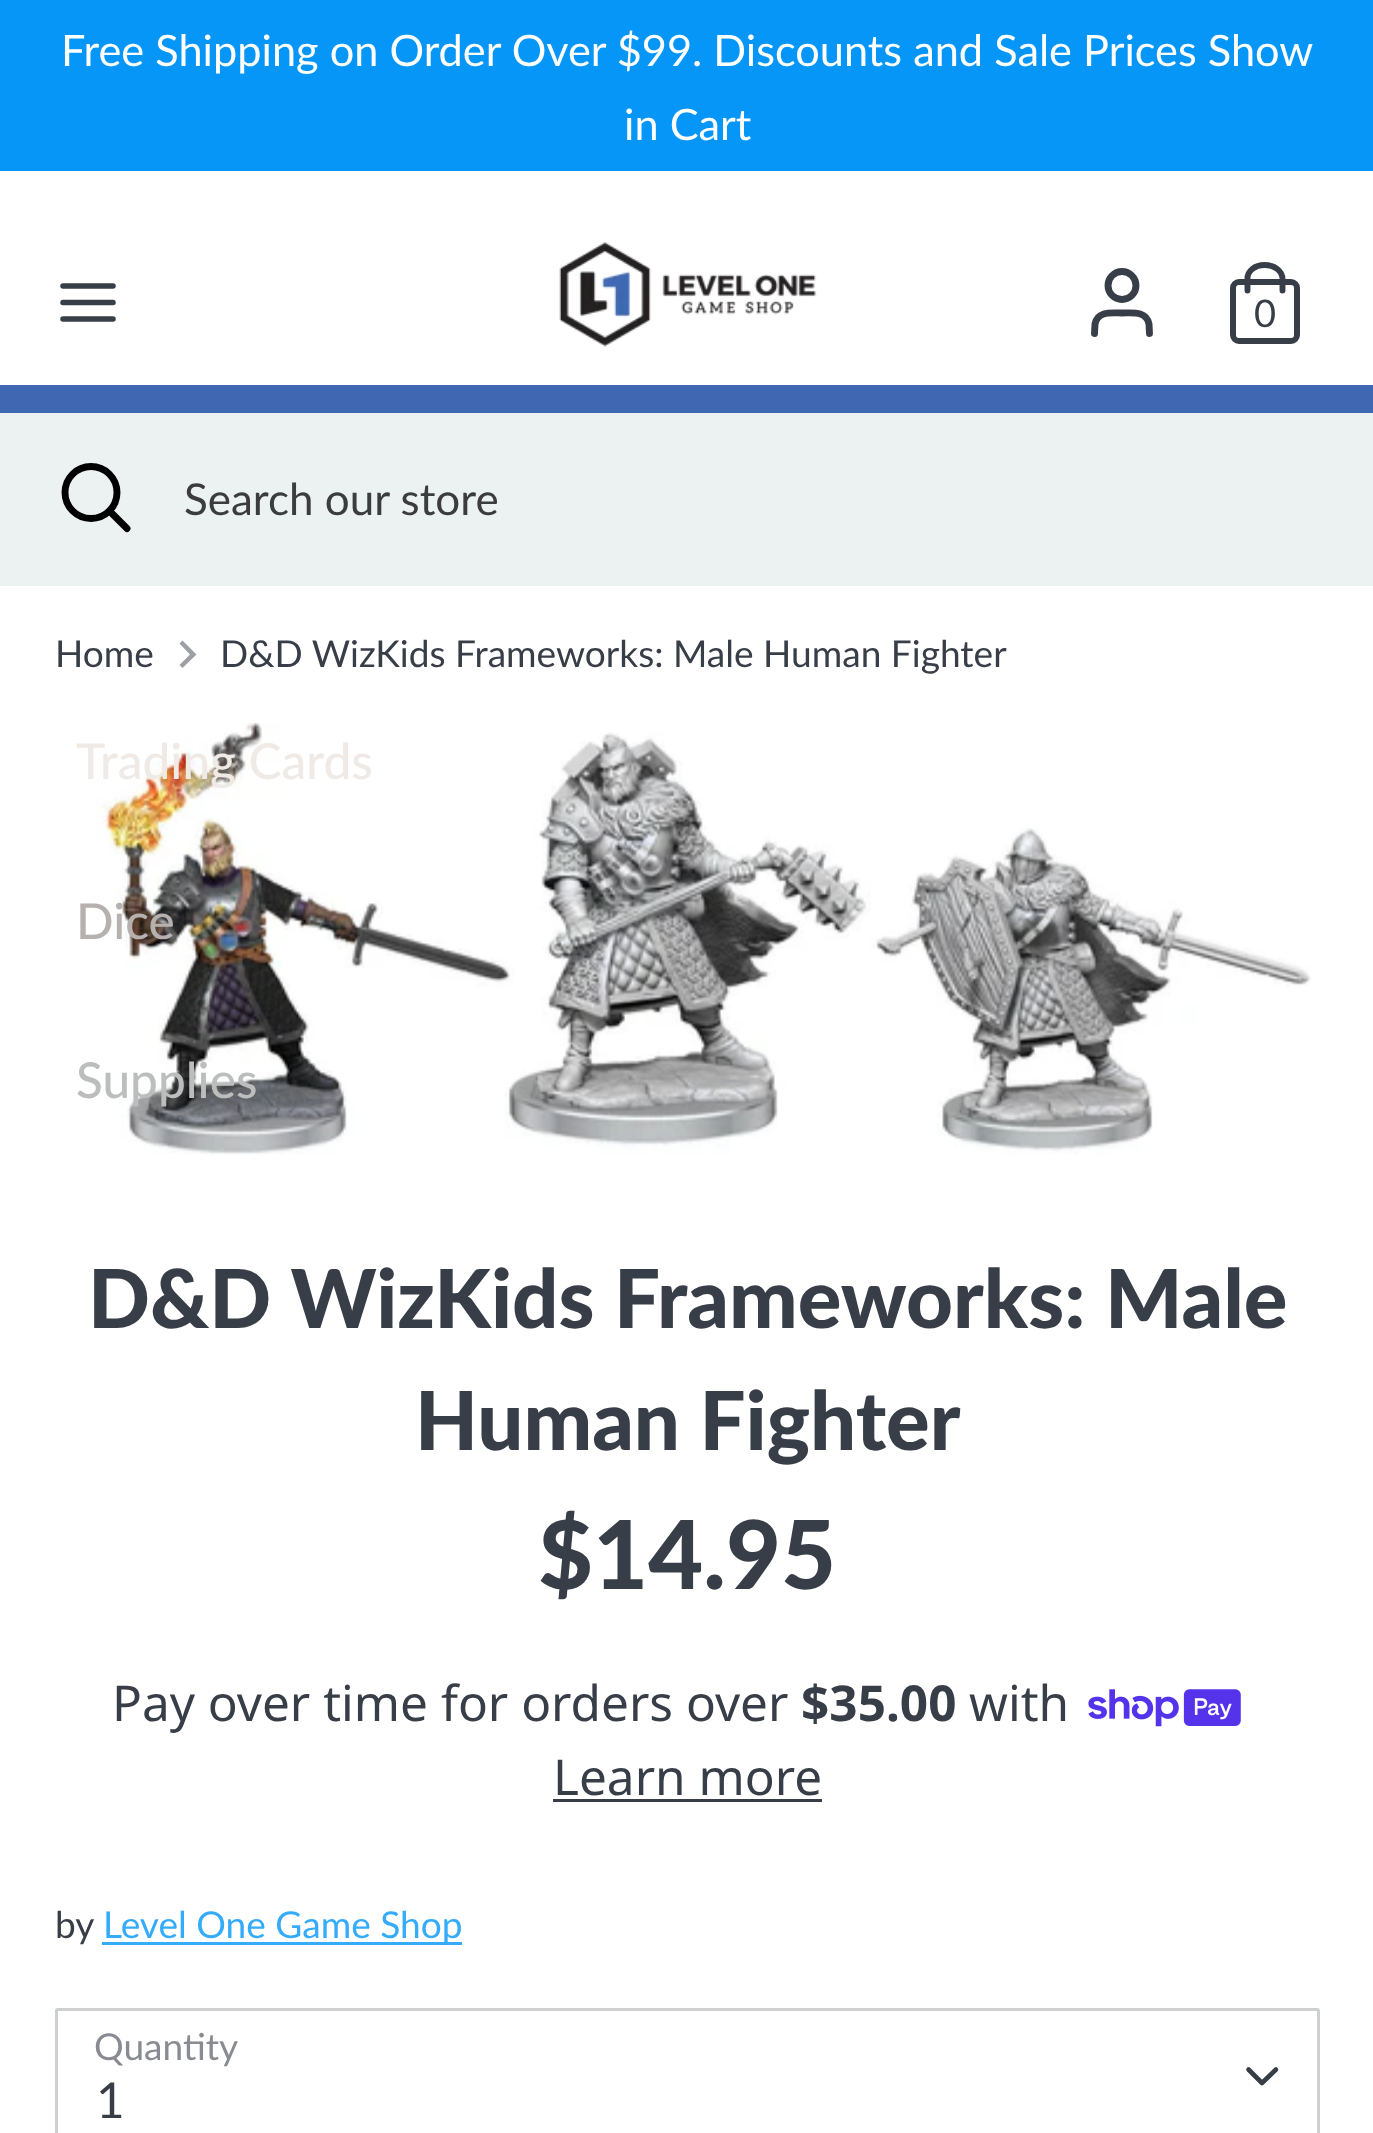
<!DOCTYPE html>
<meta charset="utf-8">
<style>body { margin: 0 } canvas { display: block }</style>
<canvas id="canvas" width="1373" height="2133"></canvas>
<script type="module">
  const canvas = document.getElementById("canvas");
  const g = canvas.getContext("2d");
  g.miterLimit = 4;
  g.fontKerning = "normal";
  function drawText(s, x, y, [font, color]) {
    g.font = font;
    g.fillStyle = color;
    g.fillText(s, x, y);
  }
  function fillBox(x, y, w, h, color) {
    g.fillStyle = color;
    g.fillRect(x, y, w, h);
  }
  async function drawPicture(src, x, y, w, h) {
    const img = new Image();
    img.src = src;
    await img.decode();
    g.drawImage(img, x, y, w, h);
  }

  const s1 = ["43.3px Lato", "#FFFFFF"];
  const s2 = ["38px Lato", "#383E47"];
  const s3 = ["44px Lato", "#3B3C3D"];
  const s4 = ["500 49.5px Lato", "#F0EAE6"];
  const s5 = ["500 49.5px Lato", "#B6B1AE"];
  const s6 = ["500 49.5px Lato", "#BCBDBD"];
  const s7 = ["37.1px Lato", "#383E47"];
  const s8 = ["900 81.5px Lato", "#383E47"];
  const s9 = ["900 95px Lato", "#383E47"];
  const s10 = ["49.5px Noto Sans", "#383E47"];
  const s11 = ["bold 49.5px Noto Sans", "#383E47"];
  const s12 = ["37.1px Lato", "#35ABFB"];
  const s13 = ["37.1px Lato", "#888B91"];
  const s14 = ["49.5px Lato", "#383E47"];

  fillBox(0, 0, 1373, 2133, "#FFFFFF");
  fillBox(0, 0, 1373, 171, "#0596F8");
  drawText("Free Shipping on Order Over $99. Discounts and Sale Prices Show", 61, 66, s1);
  drawText("in Cart", 624, 140, s1);
  await drawPicture("pic1.png", 559, 242, 258, 105);
  g.beginPath();
  g.moveTo(63, 302.5);
  g.lineTo(113, 302.5);
  g.moveTo(63, 286);
  g.lineTo(113, 286);
  g.moveTo(63, 319);
  g.lineTo(113, 319);
  g.strokeStyle = "#383E47";
  g.lineWidth = 5.5;
  g.lineCap = "round";
  g.stroke();
  g.beginPath();
  g.moveTo(1149.5, 333.5);
  g.lineTo(1149, 324);
  g.bezierCurveTo(1146.5, 310.5, 1132, 313, 1122, 313);
  g.bezierCurveTo(1112, 313, 1097.5, 310.5, 1095, 324);
  g.lineTo(1094.5, 333.5);
  g.lineWidth = 6.9;
  g.stroke();
  g.beginPath();
  g.arc(1122, 285.5, 14, 0, Math.PI * 2);
  g.stroke();
  g.beginPath();
  g.roundRect(1233, 282, 64, 59, 6);
  g.lineWidth = 6;
  g.stroke();
  g.beginPath();
  g.moveTo(1247.5, 290.5);
  g.lineTo(1247.5, 279);
  g.bezierCurveTo(1247, 271, 1255, 265, 1264.5, 265);
  g.bezierCurveTo(1274.5, 265, 1282.5, 271, 1282.5, 279);
  g.lineTo(1282.5, 290.5);
  g.lineWidth = 5.9;
  g.stroke();
  drawText("0", 1254, 327, s2);
  fillBox(0, 413, 1373, 173, "#ECF1F2");
  g.beginPath();
  g.arc(91, 492.5, 26, 0, Math.PI * 2);
  g.strokeStyle = "#000000";
  g.lineWidth = 6.9;
  g.stroke();
  g.beginPath();
  g.moveTo(127, 528.5);
  g.lineTo(109.5, 511);
  g.stroke();
  drawText("Search our store", 184, 515, s3);
  fillBox(0, 385, 1373, 28, "#4068B2");
  await drawPicture("pic2.png", 96, 723, 1215, 432);
  drawText("Trading Cards", 76, 779, s4);
  drawText("Dice", 76, 939, s5);
  drawText("Supplies", 76, 1098, s6);
  drawText("Home", 55, 667, s7);
  g.fillStyle = "#9C9FA3";
  g.beginPath();
  g.moveTo(179.5, 665);
  g.lineTo(190, 654.5);
  g.lineTo(179.5, 643.5);
  g.lineTo(182.5, 640.5);
  g.lineTo(196.5, 654.5);
  g.lineTo(182.5, 668);
  g.closePath();
  g.fill();
  drawText("D&D WizKids Frameworks: Male Human Fighter", 220, 667, s7);
  drawText("D&D WizKids Frameworks: Male", 88, 1328, s8);
  drawText("Human Fighter", 415, 1450, s8);
  drawText("$14.95", 538, 1589, s9);
  drawText("Pay over time for orders over", 112, 1721, s10);
  drawText("$35.00", 801, 1721, s11);
  drawText("with", 969, 1721, s10);
  await drawPicture("pic3.png", 1088, 1689, 153, 38);
  drawText("Learn more", 553, 1795, s10);
  fillBox(553, 1799, 269, 3, "#383E47");
  drawText("by", 55, 1938, s7);
  fillBox(102, 1942, 360, 3, "#35ABFB");
  drawText("Level One Game Shop", 103, 1938, s12);
  drawText("Quantity", 94, 2060, s13);
  g.beginPath();
  g.roundRect(56.5, 2009.5, 1262, 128, 1.5);
  g.strokeStyle = "#CDCFD1";
  g.lineWidth = 3;
  g.stroke();
  g.beginPath();
  g.moveTo(1248.5, 2069.5);
  g.lineTo(1262, 2083);
  g.lineTo(1276, 2069.5);
  g.strokeStyle = "#383E47";
  g.lineWidth = 4.6;
  g.lineJoin = "round";
  g.stroke();
  drawText("1", 96, 2118, s14);
</script>
